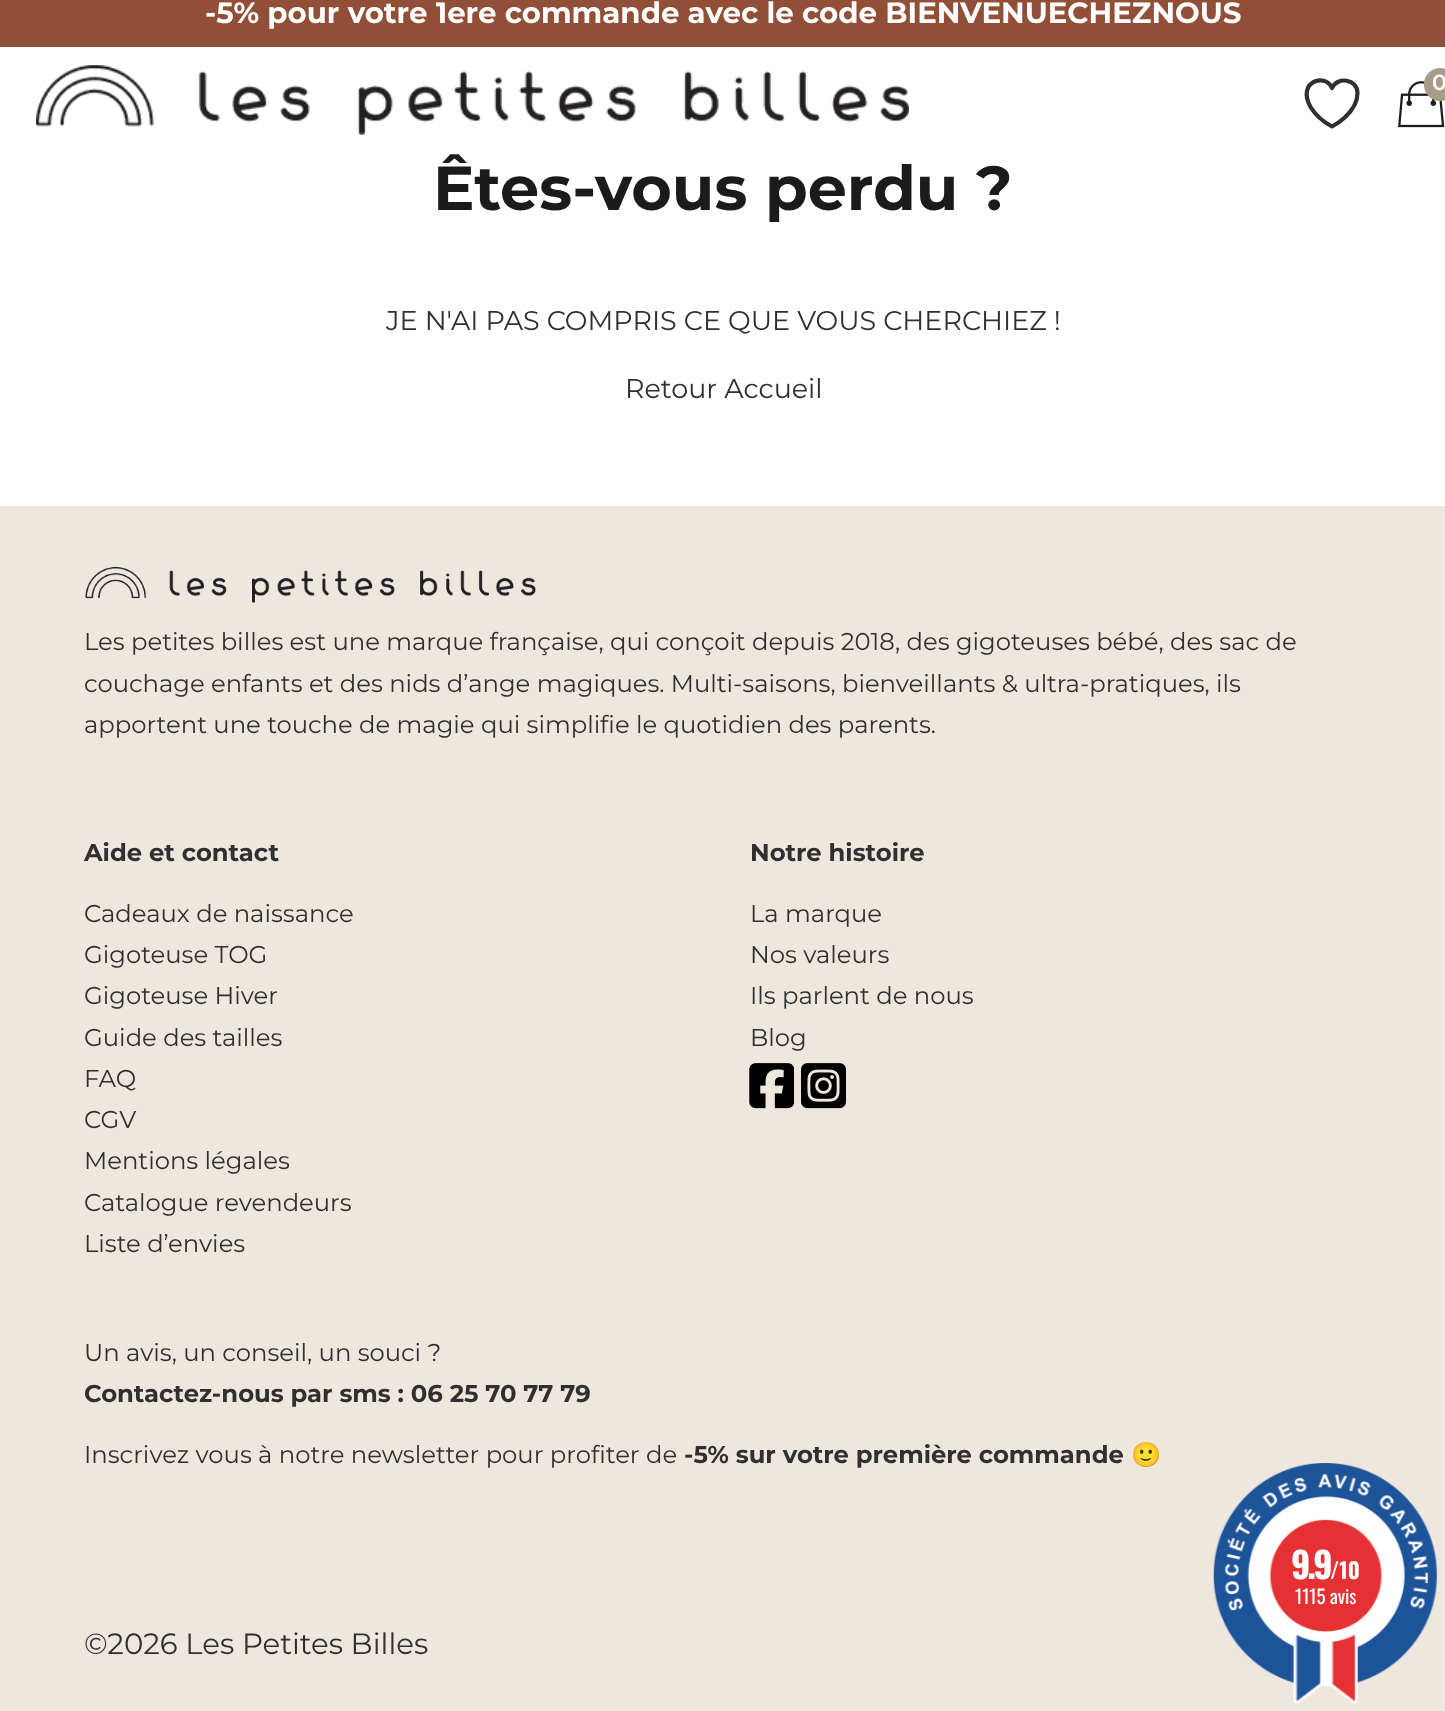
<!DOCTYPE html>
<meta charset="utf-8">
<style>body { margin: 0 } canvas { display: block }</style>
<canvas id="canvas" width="1445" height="1711"></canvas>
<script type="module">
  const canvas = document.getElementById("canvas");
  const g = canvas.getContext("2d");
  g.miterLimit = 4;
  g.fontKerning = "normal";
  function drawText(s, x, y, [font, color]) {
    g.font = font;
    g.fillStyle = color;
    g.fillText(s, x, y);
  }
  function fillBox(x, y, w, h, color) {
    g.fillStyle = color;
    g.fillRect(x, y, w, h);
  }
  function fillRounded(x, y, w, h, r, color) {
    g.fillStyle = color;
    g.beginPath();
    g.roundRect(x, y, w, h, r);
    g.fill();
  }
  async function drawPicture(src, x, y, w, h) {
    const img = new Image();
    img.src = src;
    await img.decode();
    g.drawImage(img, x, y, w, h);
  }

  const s1 = ["bold 29.25px Montserrat", "#FFFFFF"];
  const s2 = ["600 22px Montserrat", "#FFFFFF"];
  const s3 = ["bold 62px Montserrat", "#1B1B1B"];
  const s4 = ["27px Montserrat", "#303030"];
  const s5 = ["24.3px Montserrat", "#303030"];
  const s6 = ["bold 24.3px Montserrat", "#303030"];
  const s7 = ["bold 24.3px Noto Color Emoji", "#303030"];
  const s8 = ["29.25px Montserrat", "#303030"];
  const s9 = ["bold 36px Oswald", "#FFFFFF"];
  const s10 = ["bold 22px Oswald", "#FFFFFF"];
  const s11 = ["19px Oswald", "#FFFFFF"];

  fillBox(0, 0, 1445, 1711, "#FFFFFF");
  fillBox(0, 0, 1445, 47, "#904F36");
  drawText("-5% pour votre 1ere commande avec le code BIENVENUECHEZNOUS", 205, 23, s1);
  await drawPicture("pic1.png", 36, 65, 873, 70);
  g.beginPath();
  g.moveTo(1357.5, 93);
  g.bezierCurveTo(1357.5, 79, 1337.5, 76, 1332, 88);
  g.bezierCurveTo(1325, 72.5, 1296.5, 81.5, 1310.5, 107);
  g.bezierCurveTo(1315.5, 115, 1323.5, 122, 1332, 126.5);
  g.bezierCurveTo(1332, 126.5, 1357.5, 113.5, 1357.5, 93);
  g.closePath();
  g.strokeStyle = "#303030";
  g.lineWidth = 4.2;
  g.lineCap = "round";
  g.lineJoin = "round";
  g.stroke();
  await drawPicture("pic2.png", 1398, 72, 47, 56);
  fillRounded(1424, 68, 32, 33, 16, "#A89B87");
  drawText("0", 1432, 90, s2);
  drawText("Êtes-vous perdu ?", 433, 210, s3);
  drawText("JE N'AI PAS COMPRIS CE QUE VOUS CHERCHIEZ !", 386, 330, s4);
  drawText("Retour Accueil", 625, 398, s4);
  fillBox(0, 506, 1445, 1205, "#EDE7DE");
  await drawPicture("pic3.png", 85, 567, 451, 36);
  drawText("Les petites billes est une marque française, qui conçoit depuis 2018, des gigoteuses bébé, des sac de", 84, 650, s5);
  drawText("couchage enfants et des nids d’ange magiques. Multi-saisons, bienveillants & ultra-pratiques, ils", 84, 692, s5);
  drawText("apportent une touche de magie qui simplifie le quotidien des parents.", 84, 733, s5);
  drawText("Aide et contact", 84, 861, s6);
  drawText("Cadeaux de naissance", 84, 922, s5);
  drawText("Gigoteuse TOG", 84, 963, s5);
  drawText("Gigoteuse Hiver", 84, 1004, s5);
  drawText("Guide des tailles", 84, 1046, s5);
  drawText("FAQ", 84, 1087, s5);
  drawText("CGV", 84, 1128, s5);
  drawText("Mentions légales", 84, 1169, s5);
  drawText("Catalogue revendeurs", 84, 1211, s5);
  drawText("Liste d’envies", 84, 1252, s5);
  drawText("Notre histoire", 750, 861, s6);
  drawText("La marque", 750, 922, s5);
  drawText("Nos valeurs", 750, 963, s5);
  drawText("Ils parlent de nous", 750, 1004, s5);
  drawText("Blog", 750, 1046, s5);
  await drawPicture("pic4.png", 749, 1063, 45, 46);
  await drawPicture("pic5.png", 801, 1063, 45, 46);
  drawText("Un avis, un conseil, un souci ?", 84, 1361, s5);
  drawText("Contactez-nous par sms : 06 25 70 77 79", 84, 1402, s6);
  drawText("Inscrivez vous à notre newsletter pour profiter de", 84, 1463, s5);
  drawText("-5% sur votre première commande", 684, 1463, s6);
  drawText("🙂", 1131, 1463, s7);
  drawText("©2026 Les Petites Billes", 84, 1654, s8);
  await drawPicture("pic6.png", 1213, 1463, 225, 241);
  g.letterSpacing = "-3px";
  drawText("9.9", 1291, 1579, s9);
  g.letterSpacing = "0px";
  drawText("/10", 1330, 1579, s10);
  drawText("1115 avis", 1295, 1604, s11);
</script>
